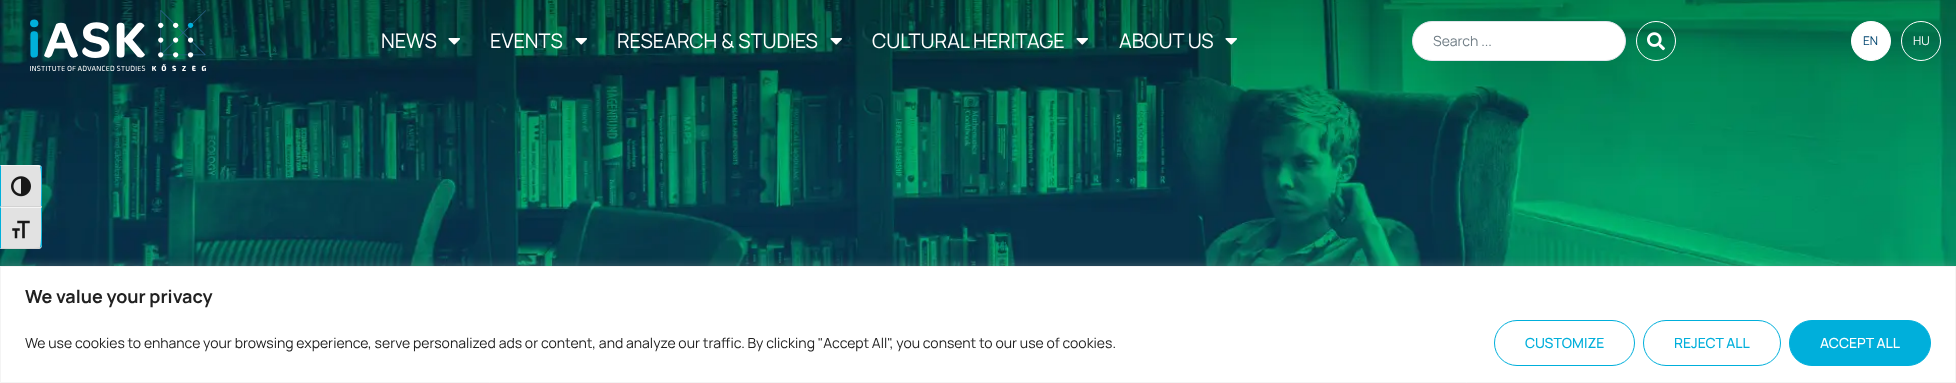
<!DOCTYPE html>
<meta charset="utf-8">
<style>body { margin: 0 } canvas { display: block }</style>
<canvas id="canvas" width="1956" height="383"></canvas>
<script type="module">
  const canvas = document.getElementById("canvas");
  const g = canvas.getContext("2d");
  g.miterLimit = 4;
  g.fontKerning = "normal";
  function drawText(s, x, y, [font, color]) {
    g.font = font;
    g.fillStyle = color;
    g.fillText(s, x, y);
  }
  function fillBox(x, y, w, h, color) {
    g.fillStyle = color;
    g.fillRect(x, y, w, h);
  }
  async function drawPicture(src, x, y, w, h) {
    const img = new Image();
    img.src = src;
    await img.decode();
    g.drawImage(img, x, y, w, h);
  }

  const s1 = ["20px Manrope", "#FFFFFF"];
  const s2 = ["14px Manrope", "#717E86"];
  const s3 = ["12px Manrope", "#004570"];
  const s4 = ["12px Manrope", "#FFFFFF"];
  const s5 = ["bold 18px Manrope", "#212121"];
  const s6 = ["14px Manrope", "#212121"];
  const s7 = ["500 14px Manrope", "#00AFDB"];
  const s8 = ["500 14px Manrope", "#FFFFFF"];

  fillBox(0, 0, 1956, 383, "#FFFFFF");
  await drawPicture("pic1.png", 0, 0, 1956, 266);
  await drawPicture("pic2.png", 30, 10, 176, 61);
  drawText("NEWS", 381, 48, s1);
  await drawPicture("pic3.png", 448, 38, 12, 7);
  drawText("EVENTS", 490, 48, s1);
  await drawPicture("pic4.png", 575, 38, 12, 7);
  drawText("RESEARCH & STUDIES", 617, 48, s1);
  await drawPicture("pic5.png", 830, 38, 12, 7);
  drawText("CULTURAL HERITAGE", 872, 48, s1);
  await drawPicture("pic6.png", 1076, 38, 12, 7);
  drawText("ABOUT US", 1119, 48, s1);
  await drawPicture("pic7.png", 1225, 38, 12, 7);
  g.beginPath();
  g.roundRect(1412.5, 21.5, 213, 39, 19.5);
  g.fill();
  g.strokeStyle = "#E1E5EB";
  g.stroke();
  drawText("Search ...", 1433, 46, s2);
  g.beginPath();
  g.arc(1656, 41, 19.5, 0, Math.PI * 2);
  g.strokeStyle = "#FFFFFF";
  g.stroke();
  await drawPicture("pic8.png", 1647, 32, 18, 19);
  g.fillStyle = "#FFFFFF";
  g.beginPath();
  g.arc(1871, 41, 19.5, 0, Math.PI * 2);
  g.fill();
  g.stroke();
  drawText("EN", 1863, 45, s3);
  g.beginPath();
  g.arc(1921, 41, 19.5, 0, Math.PI * 2);
  g.stroke();
  drawText("HU", 1913, 45, s4);
  g.fillStyle = "#E2E2E2";
  g.beginPath();
  g.roundRect(0, 165, 42, 42, [0, 4, 0, 0]);
  g.fill();
  g.fillStyle = "#F5F5F5";
  g.beginPath();
  g.moveTo(0, 165);
  g.lineTo(1, 166);
  g.bezierCurveTo(6, 166, 38, 165, 40, 167);
  g.lineTo(41, 166);
  g.lineTo(38, 165);
  g.closePath();
  g.fill();
  g.fillStyle = "#00B0DB";
  g.beginPath();
  g.moveTo(42, 207);
  g.lineTo(42, 169);
  g.bezierCurveTo(42, 168, 42, 167, 41, 166);
  g.lineTo(40, 167);
  g.bezierCurveTo(42, 169, 41, 201, 41, 206);
  g.closePath();
  g.fill();
  g.fillStyle = "#D2D2D2";
  g.beginPath();
  g.moveTo(42, 207);
  g.lineTo(41, 206);
  g.lineTo(1, 206);
  g.lineTo(0, 207);
  g.closePath();
  g.fill();
  g.fillStyle = "#00B0DB";
  g.beginPath();
  g.moveTo(0, 165);
  g.lineTo(0, 207);
  g.lineTo(1, 206);
  g.lineTo(1, 166);
  g.closePath();
  g.fill();
  await drawPicture("pic9.png", 11, 176, 20, 21);
  g.fillStyle = "#E2E2E2";
  g.beginPath();
  g.roundRect(0, 207, 42, 42, [0, 0, 4, 0]);
  g.fill();
  g.fillStyle = "#F5F5F5";
  g.beginPath();
  g.moveTo(0, 207);
  g.lineTo(1, 208);
  g.lineTo(41, 208);
  g.lineTo(42, 207);
  g.closePath();
  g.fill();
  g.fillStyle = "#00B0DB";
  g.beginPath();
  g.moveTo(42, 207);
  g.lineTo(41, 208);
  g.bezierCurveTo(41, 213, 42, 245, 40, 247);
  g.lineTo(41, 248);
  g.lineTo(42, 245);
  g.closePath();
  g.fill();
  g.fillStyle = "#D2D2D2";
  g.beginPath();
  g.moveTo(38, 249);
  g.lineTo(41, 248);
  g.lineTo(40, 247);
  g.bezierCurveTo(38, 249, 6, 248, 1, 248);
  g.lineTo(0, 249);
  g.closePath();
  g.fill();
  g.fillStyle = "#00B0DB";
  g.beginPath();
  g.moveTo(0, 207);
  g.lineTo(0, 249);
  g.lineTo(1, 248);
  g.lineTo(1, 208);
  g.closePath();
  g.fill();
  await drawPicture("pic10.png", 12, 220, 18, 19);
  g.fillStyle = "rgba(172, 171, 171, 0.3)";
  g.filter = "blur(5px)";
  g.beginPath();
  g.rect(0, 265, 1956, 117);
  g.fill();
  g.filter = "none";
  g.fillStyle = "#FFFFFF";
  g.beginPath();
  g.rect(0.5, 266.5, 1955, 116);
  g.fill();
  g.strokeStyle = "#F4F4F4";
  g.stroke();
  drawText("We value your privacy", 25, 303, s5);
  drawText("We use cookies to enhance your browsing experience, serve personalized ads or content, and analyze our traffic. By clicking \"Accept All\", you consent to our use of cookies.", 25, 348, s6);
  g.beginPath();
  g.roundRect(1494.5, 320.5, 140, 45, 22.5);
  g.strokeStyle = "#00AFDB";
  g.stroke();
  drawText("CUSTOMIZE", 1525, 348, s7);
  g.beginPath();
  g.roundRect(1643.5, 320.5, 137, 45, 22.5);
  g.stroke();
  drawText("REJECT ALL", 1674, 348, s7);
  g.beginPath();
  g.roundRect(1789.5, 320.5, 141, 45, 22.5);
  g.fill();
  g.stroke();
  drawText("ACCEPT ALL", 1820, 348, s8);
</script>
